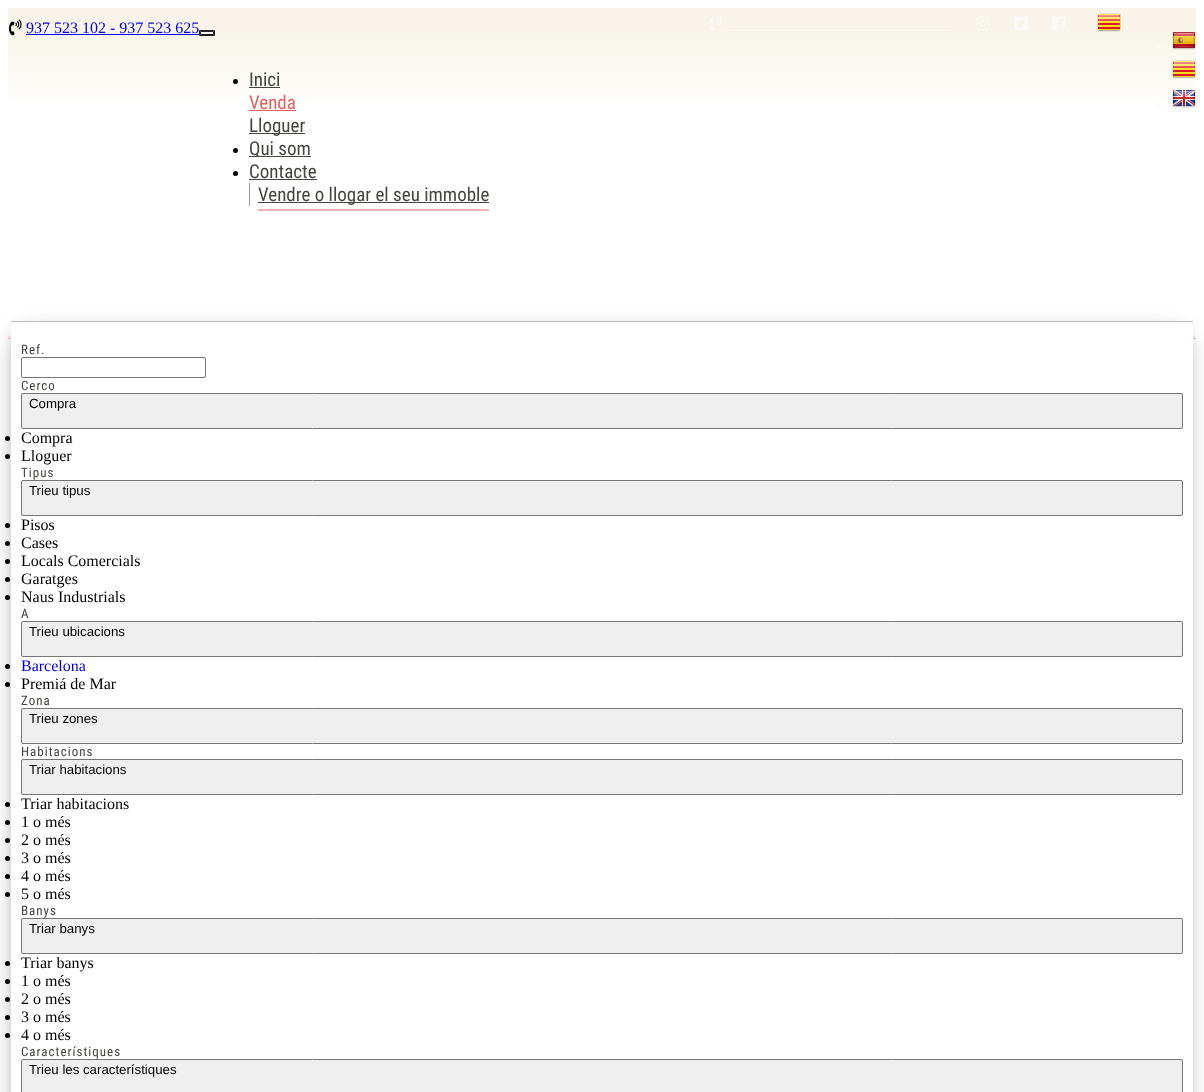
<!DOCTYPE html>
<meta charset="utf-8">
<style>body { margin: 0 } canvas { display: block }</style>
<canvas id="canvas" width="1204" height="1092"></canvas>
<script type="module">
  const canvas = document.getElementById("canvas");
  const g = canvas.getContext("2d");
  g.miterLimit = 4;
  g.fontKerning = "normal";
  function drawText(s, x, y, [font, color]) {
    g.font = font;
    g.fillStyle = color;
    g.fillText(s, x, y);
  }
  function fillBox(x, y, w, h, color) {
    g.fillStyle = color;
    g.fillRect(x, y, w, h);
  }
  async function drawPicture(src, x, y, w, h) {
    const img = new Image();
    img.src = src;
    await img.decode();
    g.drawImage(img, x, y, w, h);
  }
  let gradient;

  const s1 = ["16px Liberation Serif", "#0000EE"];
  const s2 = ["19px Roboto Condensed", "#484441"];
  const s3 = ["19px Roboto Condensed", "#E1625E"];
  const s4 = ["13px Roboto Condensed", "#484441"];
  const s5 = ["13.25px Liberation Sans", "#000000"];
  const s6 = ["16px Liberation Serif", "#000000"];

  fillBox(0, 0, 1204, 1092, "#FFFFFF");
  gradient = g.createLinearGradient(602, 8, 602, 108);
  gradient.addColorStop(0.2, "#F8F4E9");
  gradient.addColorStop(0.75, "#FCFBF6");
  gradient.addColorStop(1, "#FFFFFF");
  g.fillStyle = gradient;
  g.fillRect(8, 8, 1188, 93);
  await drawPicture("pic1.png", 9, 19, 13, 17);
  drawText("937 523 102 - 937 523 625", 26, 33, s1);
  fillBox(26, 34, 173, 1, "#0000EE");
  fillBox(199, 30, 16, 6, "#FFFFFF");
  g.fillStyle = "#242424";
  g.beginPath();
  g.moveTo(199, 30);
  g.lineTo(215, 30);
  g.lineTo(213, 32);
  g.lineTo(201, 32);
  g.closePath();
  g.fill();
  g.fillStyle = "#181818";
  g.beginPath();
  g.moveTo(215, 30);
  g.lineTo(215, 36);
  g.lineTo(213, 34);
  g.lineTo(213, 32);
  g.closePath();
  g.fill();
  g.beginPath();
  g.moveTo(215, 36);
  g.lineTo(199, 36);
  g.lineTo(201, 34);
  g.lineTo(213, 34);
  g.closePath();
  g.fill();
  g.fillStyle = "#242424";
  g.beginPath();
  g.moveTo(199, 36);
  g.lineTo(199, 30);
  g.lineTo(201, 32);
  g.lineTo(201, 34);
  g.closePath();
  g.fill();
  g.fillStyle = "#000000";
  g.beginPath();
  g.arc(235.5, 81.5, 2.5, 0, Math.PI * 2);
  g.fill();
  drawText("Inici", 249, 86, s2);
  fillBox(249, 87, 31, 1, "#484441");
  drawText("Venda", 249, 109, s3);
  fillBox(249, 110, 47, 1, "#E1625E");
  fillBox(249, 133, 56, 1, "#484441");
  drawText("Lloguer", 249, 132, s2);
  g.fillStyle = "#000000";
  g.beginPath();
  g.arc(235.5, 150.5, 2.5, 0, Math.PI * 2);
  g.fill();
  fillBox(249, 156, 62, 1, "#484441");
  drawText("Qui som", 249, 155, s2);
  g.fillStyle = "#000000";
  g.beginPath();
  g.arc(235.5, 173.5, 2.5, 0, Math.PI * 2);
  g.fill();
  drawText("Contacte", 249, 178, s2);
  fillBox(249, 179, 68, 1, "#484441");
  fillBox(249, 183, 1, 23, "#A09B95");
  fillBox(258, 202, 231, 1, "#484441");
  drawText("Vendre o llogar el seu immoble", 258, 201, s2);
  fillBox(258, 209, 231, 2, "#F1B4B2");
  await drawPicture("pic2.png", 709, 15, 13, 16);
  fillBox(723, 30, 230, 1, "#FAF9F6");
  await drawPicture("pic3.png", 976, 16, 14, 14);
  await drawPicture("pic4.png", 1014, 16, 14, 14);
  await drawPicture("pic5.png", 1052, 16, 14, 14);
  await drawPicture("pic6.png", 1097, 13, 24, 19);
  g.beginPath();
  g.arc(1158.5, 47.5, 2.5, 0, Math.PI * 2);
  g.fill();
  await drawPicture("pic7.png", 1172, 32, 24, 18);
  await drawPicture("pic8.png", 1172, 60, 24, 19);
  g.beginPath();
  g.arc(1158.5, 105.5, 2.5, 0, Math.PI * 2);
  g.fill();
  await drawPicture("pic9.png", 1172, 90, 24, 18);
  fillBox(8, 336, 1188, 2, "#FBECEC");
  fillBox(8, 338, 1188, 1, "#F5CDCB");
  g.fillStyle = "rgba(0, 0, 0, 0.64)";
  g.filter = "blur(12.5px)";
  g.beginPath();
  g.rect(20, 337, 1162, 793);
  g.fill();
  g.filter = "none";
  fillBox(11, 322, 1182, 770, "#FFFFFF");
  fillBox(11, 321, 1182, 1, "#C1BFBB");
  g.letterSpacing = "1px";
  drawText("Ref.", 21, 354, s4);
  g.beginPath();
  g.roundRect(21.5, 357.5, 184, 20, 1.5);
  g.strokeStyle = "#767676";
  g.stroke();
  drawText("Cerco", 21, 390, s4);
  g.fillStyle = "#EFEFEF";
  g.beginPath();
  g.roundRect(21.5, 393.5, 1161, 35, 1.5);
  g.fill();
  g.stroke();
  g.letterSpacing = "0px";
  drawText("Compra", 29, 408, s5);
  g.beginPath();
  g.arc(7.5, 438.5, 2.5, 0, Math.PI * 2);
  g.fill();
  drawText("Compra", 21, 443, s6);
  g.beginPath();
  g.arc(7.5, 456.5, 2.5, 0, Math.PI * 2);
  g.fill();
  drawText("Lloguer", 21, 461, s6);
  g.letterSpacing = "1px";
  drawText("Tipus", 21, 477, s4);
  g.fillStyle = "#EFEFEF";
  g.beginPath();
  g.roundRect(21.5, 480.5, 1161, 35, 1.5);
  g.fill();
  g.stroke();
  g.letterSpacing = "0px";
  drawText("Trieu tipus", 29, 495, s5);
  g.beginPath();
  g.arc(7.5, 525.5, 2.5, 0, Math.PI * 2);
  g.fill();
  drawText("Pisos", 21, 530, s6);
  g.beginPath();
  g.arc(7.5, 543.5, 2.5, 0, Math.PI * 2);
  g.fill();
  drawText("Cases", 21, 548, s6);
  g.beginPath();
  g.arc(7.5, 561.5, 2.5, 0, Math.PI * 2);
  g.fill();
  drawText("Locals Comercials", 21, 566, s6);
  g.beginPath();
  g.arc(7.5, 579.5, 2.5, 0, Math.PI * 2);
  g.fill();
  drawText("Garatges", 21, 584, s6);
  g.beginPath();
  g.arc(7.5, 597.5, 2.5, 0, Math.PI * 2);
  g.fill();
  drawText("Naus Industrials", 21, 602, s6);
  g.letterSpacing = "1px";
  drawText("A", 21, 618, s4);
  g.fillStyle = "#EFEFEF";
  g.beginPath();
  g.roundRect(21.5, 621.5, 1161, 35, 1.5);
  g.fill();
  g.stroke();
  g.letterSpacing = "0px";
  drawText("Trieu ubicacions", 29, 636, s5);
  g.beginPath();
  g.arc(7.5, 666.5, 2.5, 0, Math.PI * 2);
  g.fill();
  drawText("Barcelona", 21, 671, s1);
  g.fillStyle = "#000000";
  g.beginPath();
  g.arc(7.5, 684.5, 2.5, 0, Math.PI * 2);
  g.fill();
  drawText("Premiá de Mar", 21, 689, s6);
  g.letterSpacing = "1px";
  drawText("Zona", 21, 705, s4);
  g.fillStyle = "#EFEFEF";
  g.beginPath();
  g.roundRect(21.5, 708.5, 1161, 35, 1.5);
  g.fill();
  g.stroke();
  g.letterSpacing = "0px";
  drawText("Trieu zones", 29, 723, s5);
  g.letterSpacing = "1px";
  drawText("Habitacions", 21, 756, s4);
  g.fillStyle = "#EFEFEF";
  g.beginPath();
  g.roundRect(21.5, 759.5, 1161, 35, 1.5);
  g.fill();
  g.stroke();
  g.letterSpacing = "0px";
  drawText("Triar habitacions", 29, 774, s5);
  g.beginPath();
  g.arc(7.5, 804.5, 2.5, 0, Math.PI * 2);
  g.fill();
  drawText("Triar habitacions", 21, 809, s6);
  g.beginPath();
  g.arc(7.5, 822.5, 2.5, 0, Math.PI * 2);
  g.fill();
  drawText("1 o més", 21, 827, s6);
  g.beginPath();
  g.arc(7.5, 840.5, 2.5, 0, Math.PI * 2);
  g.fill();
  drawText("2 o més", 21, 845, s6);
  g.beginPath();
  g.arc(7.5, 858.5, 2.5, 0, Math.PI * 2);
  g.fill();
  drawText("3 o més", 21, 863, s6);
  g.beginPath();
  g.arc(7.5, 876.5, 2.5, 0, Math.PI * 2);
  g.fill();
  drawText("4 o més", 21, 881, s6);
  g.beginPath();
  g.arc(7.5, 894.5, 2.5, 0, Math.PI * 2);
  g.fill();
  drawText("5 o més", 21, 899, s6);
  g.letterSpacing = "1px";
  drawText("Banys", 21, 915, s4);
  g.fillStyle = "#EFEFEF";
  g.beginPath();
  g.roundRect(21.5, 918.5, 1161, 35, 1.5);
  g.fill();
  g.stroke();
  g.letterSpacing = "0px";
  drawText("Triar banys", 29, 933, s5);
  g.beginPath();
  g.arc(7.5, 963.5, 2.5, 0, Math.PI * 2);
  g.fill();
  drawText("Triar banys", 21, 968, s6);
  g.beginPath();
  g.arc(7.5, 981.5, 2.5, 0, Math.PI * 2);
  g.fill();
  drawText("1 o més", 21, 986, s6);
  g.beginPath();
  g.arc(7.5, 999.5, 2.5, 0, Math.PI * 2);
  g.fill();
  drawText("2 o més", 21, 1004, s6);
  g.beginPath();
  g.arc(7.5, 1017.5, 2.5, 0, Math.PI * 2);
  g.fill();
  drawText("3 o més", 21, 1022, s6);
  g.beginPath();
  g.arc(7.5, 1035.5, 2.5, 0, Math.PI * 2);
  g.fill();
  drawText("4 o més", 21, 1040, s6);
  g.letterSpacing = "1px";
  drawText("Característiques", 21, 1056, s4);
  g.fillStyle = "#EFEFEF";
  g.beginPath();
  g.roundRect(21.5, 1059.5, 1161, 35, 1.5);
  g.fill();
  g.stroke();
  g.letterSpacing = "0px";
  drawText("Trieu les característiques", 29, 1074, s5);
</script>
